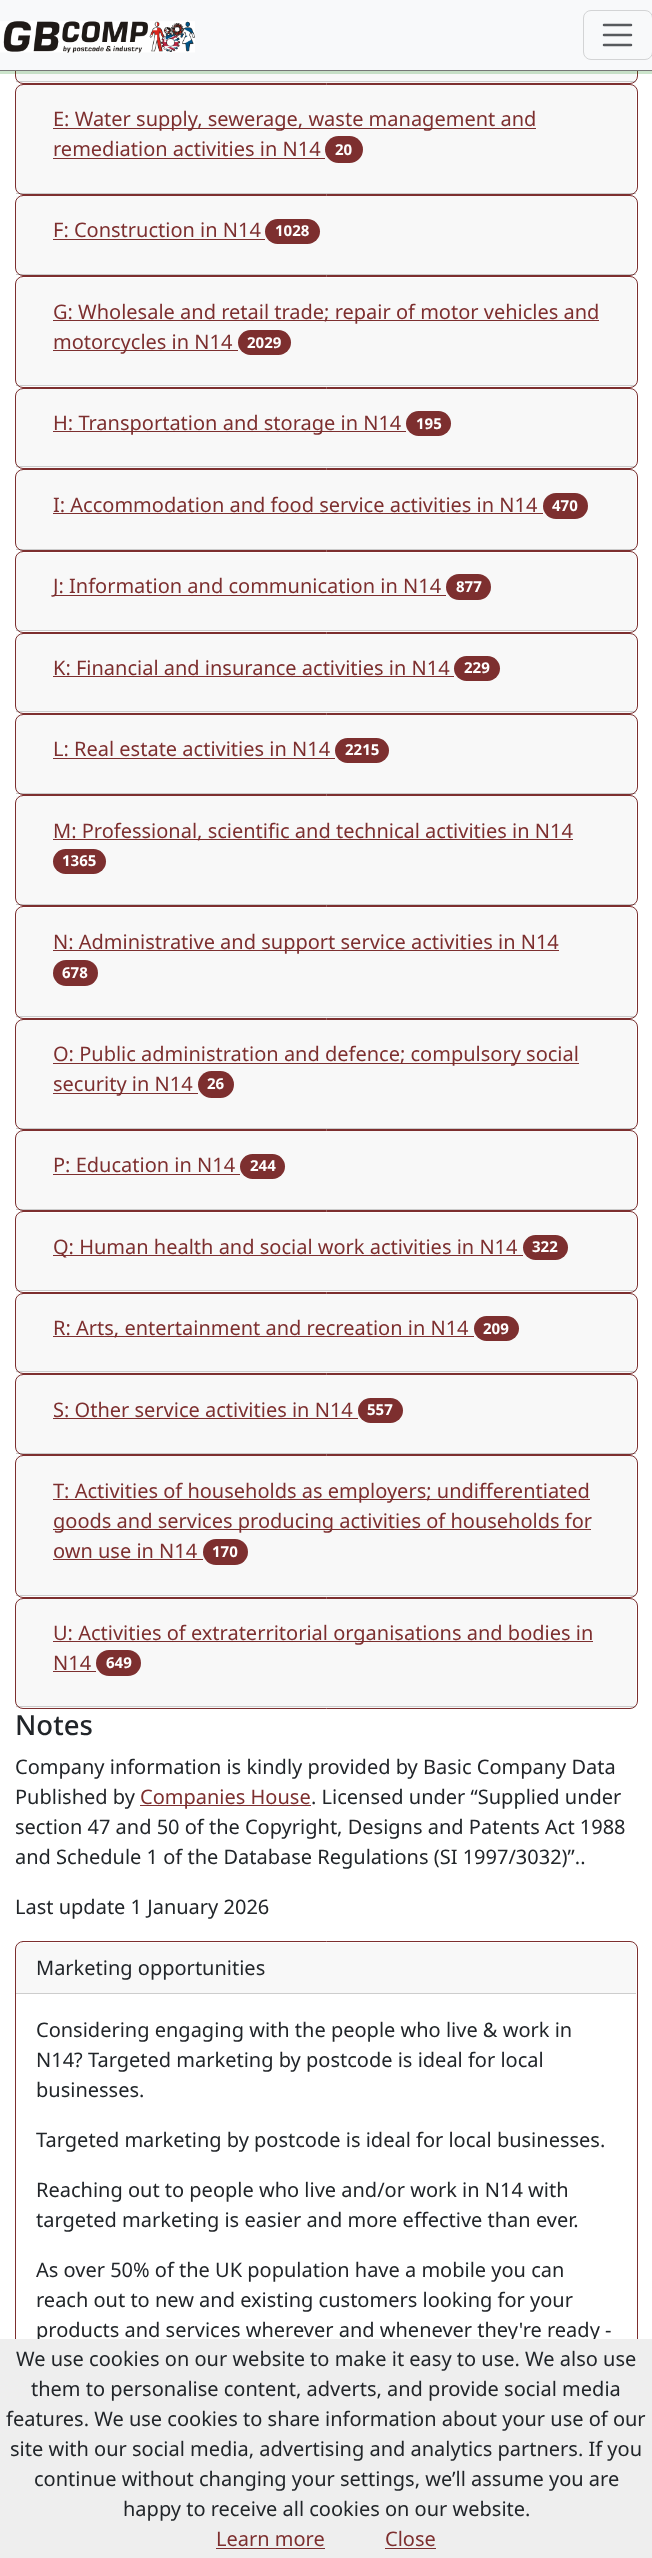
<!DOCTYPE html>
<meta charset="utf-8">
<style>body { margin: 0 } canvas { display: block }</style>
<canvas id="canvas" width="652" height="2558"></canvas>
<script type="module">
  const canvas = document.getElementById("canvas");
  const g = canvas.getContext("2d");
  g.miterLimit = 4;
  g.fontKerning = "normal";
  function drawText(s, x, y, [font, color]) {
    g.font = font;
    g.fillStyle = color;
    g.fillText(s, x, y);
  }
  function fillBox(x, y, w, h, color) {
    g.fillStyle = color;
    g.fillRect(x, y, w, h);
  }
  function fillRounded(x, y, w, h, r, color) {
    g.fillStyle = color;
    g.beginPath();
    g.roundRect(x, y, w, h, r);
    g.fill();
  }
  async function drawPicture(src, x, y, w, h) {
    const img = new Image();
    img.src = src;
    await img.decode();
    g.drawImage(img, x, y, w, h);
  }

  const s1 = ["20px Noto Sans", "#7D2F2F"];
  const s2 = ["bold 15px Noto Sans", "#FFFFFF"];
  const s3 = ["500 27.5px Noto Sans", "#212529"];
  const s4 = ["20px Noto Sans", "#212529"];

  fillBox(0, 0, 652, 2558, "#FFFFFF");
  g.beginPath();
  g.roundRect(15.5, -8.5, 622, 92, 7.5);
  g.strokeStyle = "#7D2F2F";
  g.stroke();
  fillBox(16, 71, 620, 12, "rgba(33, 37, 41, 0.03)");
  g.fillStyle = "rgba(0, 125, 0, 0.2)";
  g.beginPath();
  g.moveTo(0, 71);
  g.lineTo(0, 74);
  g.lineTo(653, 74);
  g.lineTo(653, 3);
  g.lineTo(652, 3);
  g.lineTo(652, 71);
  g.closePath();
  g.fill();
  fillBox(0, 0, 652, 70, "#F8F9FA");
  fillBox(0, 70, 652, 1, "#777777");
  await drawPicture("pic1.png", 0, 21, 195, 32);
  g.beginPath();
  g.roundRect(583.5, 10.5, 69, 49, 7.5);
  g.strokeStyle = "#D3D4D5";
  g.stroke();
  g.beginPath();
  g.moveTo(604, 25);
  g.lineTo(631, 25);
  g.moveTo(604, 35);
  g.lineTo(631, 35);
  g.moveTo(604, 45);
  g.lineTo(631, 45);
  g.strokeStyle = "#575A5D";
  g.lineWidth = 2.5;
  g.lineCap = "round";
  g.stroke();
  fillBox(16, 81, 620, 1, "rgba(0, 0, 0, 0.18)");
  g.beginPath();
  g.roundRect(15.5, 84.5, 622, 110, 7.5);
  g.strokeStyle = "#7D2F2F";
  g.lineWidth = 1;
  g.stroke();
  fillBox(16, 85, 620, 109, "rgba(33, 37, 41, 0.03)");
  fillBox(16, 193, 620, 1, "rgba(0, 0, 0, 0.18)");
  fillBox(53, 128, 483, 1, "#7D2F2F");
  drawText("E: Water supply, sewerage, waste management and", 53, 126, s1);
  drawText("remediation activities in N14", 53, 156, s1);
  fillBox(53, 158, 272, 1, "#7D2F2F");
  fillRounded(325, 136, 38, 27, 13.5, "#7D2F2F");
  drawText("20", 335, 155, s2);
  g.beginPath();
  g.roundRect(15.5, 195.5, 622, 80, 7.5);
  g.stroke();
  fillBox(16, 196, 620, 79, "rgba(33, 37, 41, 0.03)");
  fillBox(16, 274, 620, 1, "rgba(0, 0, 0, 0.18)");
  drawText("F: Construction in N14", 53, 237, s1);
  fillBox(53, 239, 212, 1, "#7D2F2F");
  fillRounded(265, 219, 55, 25, 12.5, "#7D2F2F");
  drawText("1028", 275, 236, s2);
  g.beginPath();
  g.roundRect(15.5, 276.5, 622, 111, 7.5);
  g.stroke();
  fillBox(16, 278, 620, 108, "rgba(33, 37, 41, 0.03)");
  fillBox(16, 385, 620, 1, "rgba(0, 0, 0, 0.18)");
  fillBox(53, 320, 546, 1, "#7D2F2F");
  drawText("G: Wholesale and retail trade; repair of motor vehicles and", 53, 319, s1);
  fillBox(53, 350, 185, 1, "#7D2F2F");
  drawText("motorcycles in N14", 53, 349, s1);
  fillRounded(238, 330, 53, 25, 12.5, "#7D2F2F");
  drawText("2029", 247, 348, s2);
  g.beginPath();
  g.roundRect(15.5, 388.5, 622, 80, 7.5);
  g.stroke();
  fillBox(16, 389, 620, 79, "rgba(33, 37, 41, 0.03)");
  fillBox(16, 466, 620, 1, "rgba(0, 0, 0, 0.18)");
  fillBox(53, 431, 353, 1, "#7D2F2F");
  drawText("H: Transportation and storage in N14", 53, 430, s1);
  fillRounded(406, 411, 45, 25, 12.5, "#7D2F2F");
  drawText("195", 416, 429, s2);
  g.beginPath();
  g.roundRect(15.5, 469.5, 622, 81, 7.5);
  g.stroke();
  fillBox(16, 470, 620, 80, "rgba(33, 37, 41, 0.03)");
  fillBox(16, 549, 620, 1, "rgba(0, 0, 0, 0.18)");
  drawText("I: Accommodation and food service activities in N14", 53, 512, s1);
  fillBox(53, 513, 490, 1, "#7D2F2F");
  fillRounded(543, 493, 45, 26, 13, "#7D2F2F");
  drawText("470", 552, 511, s2);
  g.beginPath();
  g.roundRect(15.5, 551.5, 622, 81, 7.5);
  g.stroke();
  fillBox(16, 553, 620, 78, "rgba(33, 37, 41, 0.03)");
  fillBox(16, 630, 620, 1, "rgba(0, 0, 0, 0.18)");
  fillBox(53, 595, 393, 1, "#7D2F2F");
  drawText("J: Information and communication in N14", 53, 593, s1);
  fillRounded(446, 574, 45, 26, 13, "#7D2F2F");
  drawText("877", 456, 592, s2);
  g.beginPath();
  g.roundRect(15.5, 633.5, 622, 80, 7.5);
  g.stroke();
  fillBox(16, 634, 620, 79, "rgba(33, 37, 41, 0.03)");
  fillBox(16, 711, 620, 1, "rgba(0, 0, 0, 0.18)");
  drawText("K: Financial and insurance activities in N14", 53, 675, s1);
  fillBox(53, 676, 401, 1, "#7D2F2F");
  fillRounded(454, 656, 46, 25, 12.5, "#7D2F2F");
  drawText("229", 464, 673, s2);
  g.beginPath();
  g.roundRect(15.5, 714.5, 622, 80, 7.5);
  g.stroke();
  fillBox(16, 715, 620, 79, "rgba(33, 37, 41, 0.03)");
  fillBox(16, 793, 620, 1, "rgba(0, 0, 0, 0.18)");
  drawText("L: Real estate activities in N14", 53, 756, s1);
  fillBox(53, 758, 282, 1, "#7D2F2F");
  fillRounded(335, 738, 54, 25, 12.5, "#7D2F2F");
  drawText("2215", 345, 755, s2);
  g.beginPath();
  g.roundRect(15.5, 795.5, 622, 110, 7.5);
  g.stroke();
  fillBox(16, 796, 620, 109, "rgba(33, 37, 41, 0.03)");
  fillBox(16, 904, 620, 1, "rgba(0, 0, 0, 0.18)");
  fillBox(53, 839, 520, 1, "#7D2F2F");
  drawText("M: Professional, scientific and technical activities in N14", 53, 838, s1);
  fillRounded(53, 849, 53, 25, 12.5, "#7D2F2F");
  drawText("1365", 62, 866, s2);
  g.beginPath();
  g.roundRect(15.5, 906.5, 622, 112, 7.5);
  g.stroke();
  fillBox(16, 908, 620, 110, "rgba(33, 37, 41, 0.03)");
  fillBox(16, 1016, 620, 1, "rgba(0, 0, 0, 0.18)");
  fillBox(53, 950, 506, 1, "#7D2F2F");
  drawText("N: Administrative and support service activities in N14", 53, 949, s1);
  fillRounded(53, 960, 45, 26, 13, "#7D2F2F");
  drawText("678", 62, 978, s2);
  g.beginPath();
  g.roundRect(15.5, 1019.5, 622, 110, 7.5);
  g.stroke();
  fillBox(16, 1020, 620, 109, "rgba(33, 37, 41, 0.03)");
  fillBox(16, 1128, 620, 1, "rgba(0, 0, 0, 0.18)");
  fillBox(53, 1063, 526, 1, "#7D2F2F");
  drawText("O: Public administration and defence; compulsory social", 53, 1061, s1);
  fillBox(53, 1093, 145, 1, "#7D2F2F");
  drawText("security in N14", 53, 1091, s1);
  fillRounded(198, 1071, 36, 27, 13.5, "#7D2F2F");
  drawText("26", 207, 1089, s2);
  g.beginPath();
  g.roundRect(15.5, 1130.5, 622, 80, 7.5);
  g.stroke();
  fillBox(16, 1131, 620, 79, "rgba(33, 37, 41, 0.03)");
  fillBox(16, 1209, 620, 1, "rgba(0, 0, 0, 0.18)");
  drawText("P: Education in N14", 53, 1172, s1);
  fillBox(53, 1174, 187, 1, "#7D2F2F");
  fillRounded(240, 1154, 45, 25, 12.5, "#7D2F2F");
  drawText("244", 250, 1171, s2);
  g.beginPath();
  g.roundRect(15.5, 1211.5, 622, 81, 7.5);
  g.stroke();
  fillBox(16, 1213, 620, 78, "rgba(33, 37, 41, 0.03)");
  fillBox(16, 1290, 620, 1, "rgba(0, 0, 0, 0.18)");
  fillBox(53, 1255, 470, 1, "#7D2F2F");
  drawText("Q: Human health and social work activities in N14", 53, 1254, s1);
  fillRounded(523, 1235, 45, 25, 12.5, "#7D2F2F");
  drawText("322", 532, 1252, s2);
  g.beginPath();
  g.roundRect(15.5, 1293.5, 622, 80, 7.5);
  g.stroke();
  fillBox(16, 1294, 620, 79, "rgba(33, 37, 41, 0.03)");
  fillBox(16, 1371, 620, 1, "rgba(0, 0, 0, 0.18)");
  fillBox(53, 1336, 421, 1, "#7D2F2F");
  drawText("R: Arts, entertainment and recreation in N14", 53, 1335, s1);
  fillRounded(474, 1316, 45, 25, 12.5, "#7D2F2F");
  drawText("209", 483, 1334, s2);
  g.beginPath();
  g.roundRect(15.5, 1374.5, 622, 80, 7.5);
  g.stroke();
  fillBox(16, 1375, 620, 79, "rgba(33, 37, 41, 0.03)");
  fillBox(16, 1453, 620, 1, "rgba(0, 0, 0, 0.18)");
  drawText("S: Other service activities in N14", 53, 1417, s1);
  fillBox(53, 1418, 305, 1, "#7D2F2F");
  fillRounded(358, 1398, 45, 25, 12.5, "#7D2F2F");
  drawText("557", 367, 1415, s2);
  g.beginPath();
  g.roundRect(15.5, 1455.5, 622, 142, 7.5);
  g.stroke();
  fillBox(16, 1456, 620, 140, "rgba(33, 37, 41, 0.03)");
  fillBox(16, 1595, 620, 1, "rgba(0, 0, 0, 0.18)");
  fillBox(53, 1499, 537, 1, "#7D2F2F");
  drawText("T: Activities of households as employers; undifferentiated", 53, 1498, s1);
  fillBox(53, 1529, 538, 1, "#7D2F2F");
  drawText("goods and services producing activities of households for", 53, 1528, s1);
  drawText("own use in N14", 53, 1558, s1);
  fillBox(53, 1559, 150, 1, "#7D2F2F");
  fillRounded(203, 1539, 45, 26, 13, "#7D2F2F");
  drawText("170", 212, 1557, s2);
  g.beginPath();
  g.roundRect(15.5, 1598.5, 622, 110, 7.5);
  g.stroke();
  fillBox(16, 1599, 620, 109, "rgba(33, 37, 41, 0.03)");
  fillBox(16, 1706, 620, 1, "rgba(0, 0, 0, 0.18)");
  fillBox(53, 1641, 540, 1, "#7D2F2F");
  drawText("U: Activities of extraterritorial organisations and bodies in", 53, 1640, s1);
  drawText("N14", 53, 1670, s1);
  fillBox(53, 1671, 43, 1, "#7D2F2F");
  fillRounded(96, 1650, 45, 26, 13, "#7D2F2F");
  drawText("649", 106, 1668, s2);
  drawText("Notes", 15, 1735, s3);
  drawText("Company information is kindly provided by Basic Company Data", 15, 1774, s4);
  drawText("Published by", 15, 1804, s4);
  fillBox(140, 1805, 171, 1, "#7D2F2F");
  drawText("Companies House", 140, 1804, s1);
  drawText(". Licensed under “Supplied under", 311, 1804, s4);
  drawText("section 47 and 50 of the Copyright, Designs and Patents Act 1988", 15, 1834, s4);
  drawText("and Schedule 1 of the Database Regulations (SI 1997/3032)”..", 15, 1864, s4);
  drawText("Last update 1 January 2026", 15, 1914, s4);
  g.beginPath();
  g.roundRect(15.5, 1941.5, 622, 523, 7.5);
  g.stroke();
  fillBox(16, 1943, 620, 50, "rgba(33, 37, 41, 0.03)");
  fillBox(16, 1993, 620, 1, "#CDCDCD");
  drawText("Marketing opportunities", 36, 1975, s4);
  drawText("Considering engaging with the people who live & work in", 36, 2037, s4);
  drawText("N14? Targeted marketing by postcode is ideal for local", 36, 2067, s4);
  drawText("businesses.", 36, 2097, s4);
  drawText("Targeted marketing by postcode is ideal for local businesses.", 36, 2147, s4);
  drawText("Reaching out to people who live and/or work in N14 with", 36, 2197, s4);
  drawText("targeted marketing is easier and more effective than ever.", 36, 2227, s4);
  drawText("As over 50% of the UK population have a mobile you can", 36, 2277, s4);
  drawText("reach out to new and existing customers looking for your", 36, 2307, s4);
  drawText("products and services wherever and whenever they're ready -", 36, 2337, s4);
  fillBox(0, 2339, 652, 219, "#EEEEEE");
  drawText("We use cookies on our website to make it easy to use. We also use", 16, 2366, s4);
  drawText("them to personalise content, adverts, and provide social media", 31, 2396, s4);
  drawText("features. We use cookies to share information about your use of our", 6, 2426, s4);
  drawText("site with our social media, advertising and analytics partners. If you", 10, 2456, s4);
  drawText("continue without changing your settings, we’ll assume you are", 34, 2486, s4);
  drawText("happy to receive all cookies on our website.", 123, 2516, s4);
  drawText("Learn more", 216, 2546, s1);
  fillBox(216, 2548, 109, 1, "#7D2F2F");
  drawText("Close", 385, 2546, s1);
  fillBox(385, 2548, 51, 1, "#7D2F2F");
</script>
